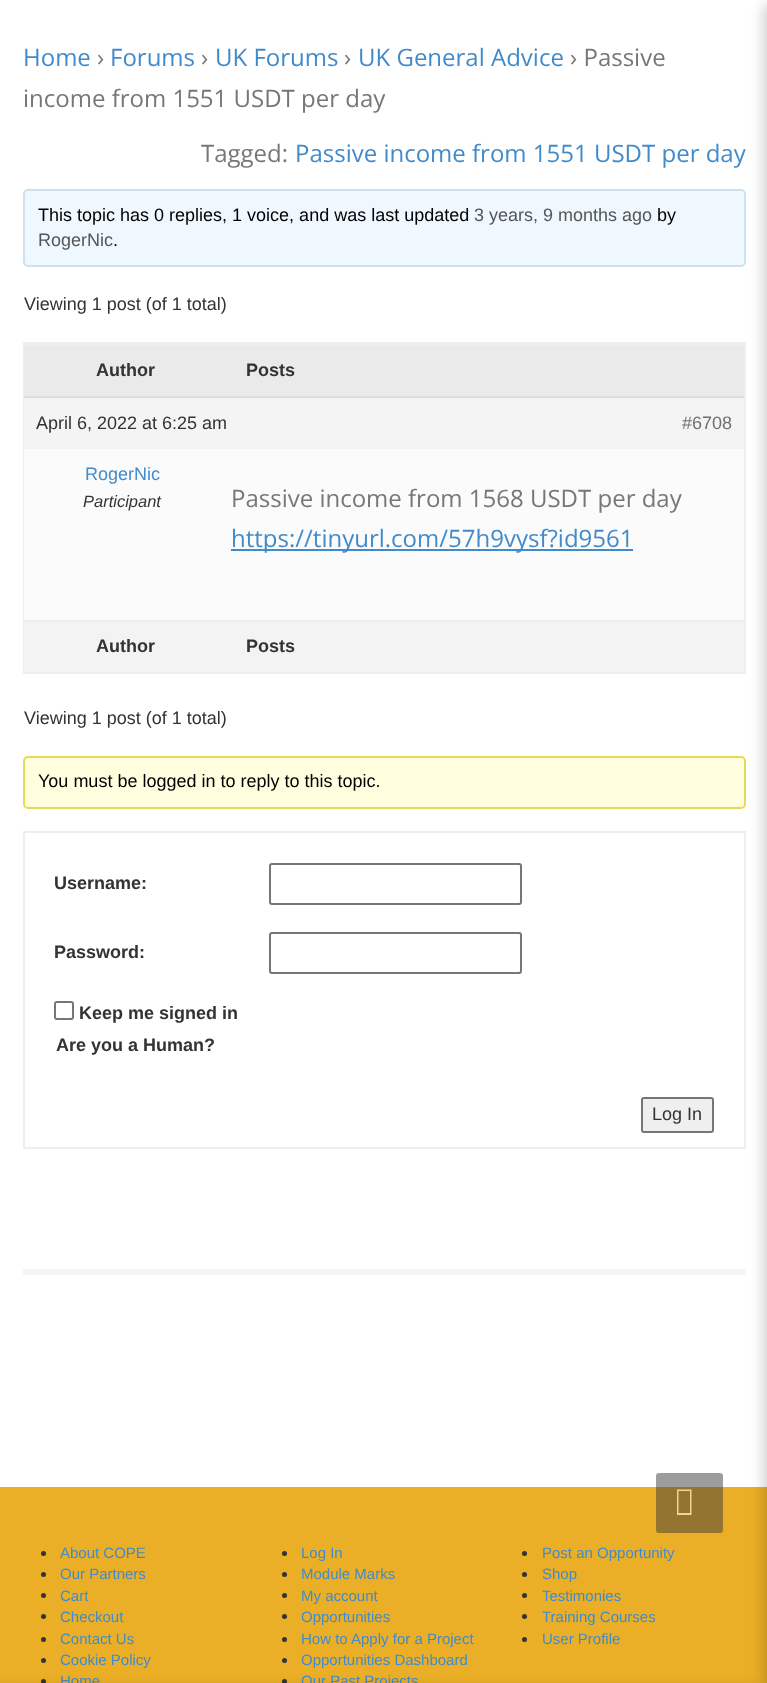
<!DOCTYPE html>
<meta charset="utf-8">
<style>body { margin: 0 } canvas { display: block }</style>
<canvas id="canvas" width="767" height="1683"></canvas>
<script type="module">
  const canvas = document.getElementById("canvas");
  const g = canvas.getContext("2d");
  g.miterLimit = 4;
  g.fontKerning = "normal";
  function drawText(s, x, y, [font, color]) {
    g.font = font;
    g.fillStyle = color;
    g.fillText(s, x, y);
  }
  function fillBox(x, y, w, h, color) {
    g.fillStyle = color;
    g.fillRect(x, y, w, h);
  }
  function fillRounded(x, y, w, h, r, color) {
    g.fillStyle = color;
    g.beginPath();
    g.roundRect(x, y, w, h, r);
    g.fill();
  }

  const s1 = ["24px Open Sans", "#428BCA"];
  const s2 = ["24px Open Sans", "#777777"];
  const s3 = ["18px Liberation Sans", "#000000"];
  const s4 = ["18px Liberation Sans", "#555555"];
  const s5 = ["18px Liberation Sans", "#333333"];
  const s6 = ["bold 18px Liberation Sans", "#333333"];
  const s7 = ["18px Liberation Sans", "#707070"];
  const s8 = ["18px Liberation Sans", "#428BCA"];
  const s9 = ["italic 16.5px Liberation Sans", "#333333"];
  const s10 = ["15px Liberation Sans", "#428BCA"];

  fillBox(0, 0, 767, 1683, "#FFFFFF");
  drawText("Home", 23, 66, s1);
  drawText("›", 97, 66, s2);
  drawText("Forums", 110, 66, s1);
  drawText("›", 201, 66, s2);
  drawText("UK Forums", 215, 66, s1);
  drawText("›", 344, 66, s2);
  drawText("UK General Advice", 358, 66, s1);
  drawText("› Passive", 570, 66, s2);
  drawText("income from 1551 USDT per day", 23, 107, s2);
  drawText("Tagged:", 201, 162, s2);
  drawText("Passive income from 1551 USDT per day", 295, 162, s1);
  g.fillStyle = "#F0F8FF";
  g.beginPath();
  g.roundRect(24, 190, 721, 76, 4);
  g.fill();
  g.strokeStyle = "#CEE1EF";
  g.lineWidth = 2;
  g.stroke();
  drawText("This topic has 0 replies, 1 voice, and was last updated", 38, 221, s3);
  drawText("3 years, 9 months ago", 474, 221, s4);
  drawText("by", 657, 221, s3);
  drawText("RogerNic", 38, 246, s4);
  drawText(".", 113, 246, s3);
  drawText("Viewing 1 post (of 1 total)", 24, 310, s5);
  g.strokeStyle = "#EEEEEE";
  g.strokeRect(24, 343, 721, 330);
  fillBox(24, 346, 720, 50, "#EAEAEA");
  fillBox(24, 344, 720, 2, "#EEEEEE");
  drawText("Author", 96, 376, s6);
  drawText("Posts", 246, 376, s6);
  fillBox(24, 398, 720, 51, "#F4F4F4");
  fillBox(24, 396, 720, 2, "#DDDDDD");
  drawText("April 6, 2022 at 6:25 am", 36, 429, s5);
  drawText("#6708", 682, 429, s7);
  fillBox(24, 449, 720, 171, "#FBFBFB");
  drawText("RogerNic", 85, 480, s8);
  drawText("Participant", 83, 507, s9);
  drawText("Passive income from 1568 USDT per day", 231, 507, s2);
  fillBox(231, 549, 402, 2, "#428BCA");
  drawText("https://tinyurl.com/57h9vysf?id9561", 231, 547, s1);
  fillBox(24, 622, 720, 50, "#F3F3F3");
  fillBox(24, 620, 720, 2, "#EEEEEE");
  drawText("Author", 96, 652, s6);
  drawText("Posts", 246, 652, s6);
  drawText("Viewing 1 post (of 1 total)", 24, 724, s5);
  g.fillStyle = "#FFFFE0";
  g.beginPath();
  g.roundRect(24, 757, 721, 51, 4);
  g.fill();
  g.strokeStyle = "#E6DB55";
  g.stroke();
  drawText("You must be logged in to reply to this topic.", 38, 787, s3);
  g.strokeStyle = "#EEEEEE";
  g.strokeRect(24, 832, 721, 316);
  drawText("Username:", 54, 889, s6);
  g.beginPath();
  g.roundRect(270, 864, 251, 40, 2);
  g.strokeStyle = "#767676";
  g.stroke();
  drawText("Password:", 54, 958, s6);
  g.beginPath();
  g.roundRect(270, 933, 251, 40, 2);
  g.stroke();
  g.beginPath();
  g.roundRect(55, 1002, 18, 17, 2);
  g.stroke();
  drawText("Keep me signed in", 79, 1019, s6);
  drawText("Are you a Human?", 56, 1051, s6);
  g.fillStyle = "#EFEFEF";
  g.beginPath();
  g.roundRect(642, 1098, 71, 34, 2);
  g.fill();
  g.stroke();
  drawText("Log In", 652, 1120, s5);
  fillBox(23, 1269, 723, 6, "#F5F5F5");
  fillBox(0, 1487, 767, 196, "#EBAF27");
  g.fillStyle = "#333333";
  g.beginPath();
  g.arc(43.5, 1553.5, 2.5, 0, Math.PI * 2);
  g.fill();
  drawText("About COPE", 60, 1558, s10);
  g.fillStyle = "#333333";
  g.beginPath();
  g.arc(284.5, 1553.5, 2.5, 0, Math.PI * 2);
  g.fill();
  drawText("Log In", 301, 1558, s10);
  g.fillStyle = "#333333";
  g.beginPath();
  g.arc(524.5, 1553.5, 2.5, 0, Math.PI * 2);
  g.fill();
  drawText("Post an Opportunity", 542, 1558, s10);
  g.fillStyle = "#333333";
  g.beginPath();
  g.arc(43.5, 1574.5, 2.5, 0, Math.PI * 2);
  g.fill();
  drawText("Our Partners", 60, 1579, s10);
  g.fillStyle = "#333333";
  g.beginPath();
  g.arc(284.5, 1574.5, 2.5, 0, Math.PI * 2);
  g.fill();
  drawText("Module Marks", 301, 1579, s10);
  g.fillStyle = "#333333";
  g.beginPath();
  g.arc(524.5, 1574.5, 2.5, 0, Math.PI * 2);
  g.fill();
  drawText("Shop", 542, 1579, s10);
  g.fillStyle = "#333333";
  g.beginPath();
  g.arc(43.5, 1595.5, 2.5, 0, Math.PI * 2);
  g.fill();
  drawText("Cart", 60, 1601, s10);
  g.fillStyle = "#333333";
  g.beginPath();
  g.arc(284.5, 1595.5, 2.5, 0, Math.PI * 2);
  g.fill();
  drawText("My account", 301, 1601, s10);
  g.fillStyle = "#333333";
  g.beginPath();
  g.arc(524.5, 1595.5, 2.5, 0, Math.PI * 2);
  g.fill();
  drawText("Testimonies", 542, 1601, s10);
  g.fillStyle = "#333333";
  g.beginPath();
  g.arc(43.5, 1616.5, 2.5, 0, Math.PI * 2);
  g.fill();
  drawText("Checkout", 60, 1622, s10);
  g.fillStyle = "#333333";
  g.beginPath();
  g.arc(284.5, 1616.5, 2.5, 0, Math.PI * 2);
  g.fill();
  drawText("Opportunities", 301, 1622, s10);
  g.fillStyle = "#333333";
  g.beginPath();
  g.arc(524.5, 1616.5, 2.5, 0, Math.PI * 2);
  g.fill();
  drawText("Training Courses", 542, 1622, s10);
  g.fillStyle = "#333333";
  g.beginPath();
  g.arc(43.5, 1639.5, 2.5, 0, Math.PI * 2);
  g.fill();
  drawText("Contact Us", 60, 1644, s10);
  g.fillStyle = "#333333";
  g.beginPath();
  g.arc(284.5, 1639.5, 2.5, 0, Math.PI * 2);
  g.fill();
  drawText("How to Apply for a Project", 301, 1644, s10);
  g.fillStyle = "#333333";
  g.beginPath();
  g.arc(524.5, 1639.5, 2.5, 0, Math.PI * 2);
  g.fill();
  drawText("User Profile", 542, 1644, s10);
  g.fillStyle = "#333333";
  g.beginPath();
  g.arc(43.5, 1660.5, 2.5, 0, Math.PI * 2);
  g.fill();
  drawText("Cookie Policy", 60, 1665, s10);
  g.fillStyle = "#333333";
  g.beginPath();
  g.arc(284.5, 1660.5, 2.5, 0, Math.PI * 2);
  g.fill();
  drawText("Opportunities Dashboard", 301, 1665, s10);
  g.fillStyle = "#333333";
  g.beginPath();
  g.arc(43.5, 1681.5, 2.5, 0, Math.PI * 2);
  g.fill();
  drawText("Home", 60, 1686, s10);
  g.fillStyle = "#333333";
  g.beginPath();
  g.arc(284.5, 1681.5, 2.5, 0, Math.PI * 2);
  g.fill();
  drawText("Our Past Projects", 301, 1686, s10);
  g.fillStyle = "rgba(0, 0, 0, 0.2)";
  g.filter = "blur(7px)";
  g.beginPath();
  g.rect(764, 5, 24, 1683);
  g.fill();
  g.filter = "none";
  fillRounded(656, 1473, 67, 60, 3, "rgba(59, 59, 59, 0.5)");
  g.fillStyle = "#F3D591";
  g.beginPath();
  g.moveTo(677, 1515);
  g.lineTo(677, 1489.5);
  g.lineTo(691.5, 1489.5);
  g.lineTo(691.5, 1515);
  g.closePath();
  g.moveTo(678.5, 1513);
  g.lineTo(690, 1513);
  g.lineTo(690, 1491);
  g.lineTo(678.5, 1491);
  g.closePath();
  g.fill();
  g.fillStyle = "rgba(0, 0, 0, 0.2)";
  g.filter = "blur(7px)";
  g.beginPath();
  g.rect(-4, 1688, 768, 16);
  g.fill();
  g.filter = "none";
</script>
